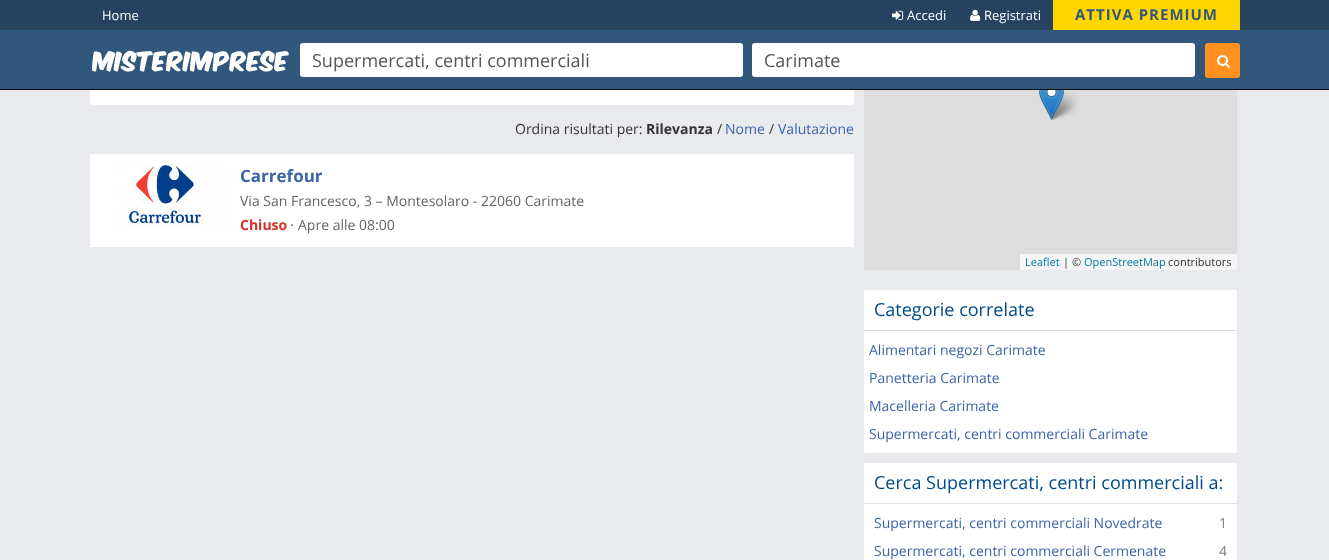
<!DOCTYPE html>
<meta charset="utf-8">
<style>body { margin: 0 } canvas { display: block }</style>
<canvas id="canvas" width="1329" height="560"></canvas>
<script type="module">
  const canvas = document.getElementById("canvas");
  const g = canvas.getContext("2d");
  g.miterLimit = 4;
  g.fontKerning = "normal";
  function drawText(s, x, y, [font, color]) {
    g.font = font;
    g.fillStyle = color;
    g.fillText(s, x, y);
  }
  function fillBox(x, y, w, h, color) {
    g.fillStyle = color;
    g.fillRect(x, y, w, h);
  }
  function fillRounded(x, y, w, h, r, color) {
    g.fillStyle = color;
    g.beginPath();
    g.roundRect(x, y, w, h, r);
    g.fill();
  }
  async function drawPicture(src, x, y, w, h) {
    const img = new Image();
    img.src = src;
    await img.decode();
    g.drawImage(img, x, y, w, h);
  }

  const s1 = ["13px Open Sans", "#FFFFFF"];
  const s2 = ["bold 15px Open Sans", "#31577D"];
  const s3 = ["18px Open Sans", "#555555"];
  const s4 = ["14px Open Sans", "#333333"];
  const s5 = ["bold 14px Open Sans", "#333333"];
  const s6 = ["14px Open Sans", "#3B65A6"];
  const s7 = ["bold 17px Open Sans", "#3B65A6"];
  const s8 = ["14px Open Sans", "#646464"];
  const s9 = ["bold 14px Open Sans", "#D93025"];
  const s10 = ["14px DejaVu Sans", "#646464"];
  const s11 = ["11px Open Sans", "#0078A8"];
  const s12 = ["11px Open Sans", "#333333"];
  const s13 = ["18px Open Sans", "#004A8B"];
  const s14 = ["14px Open Sans", "#808080"];

  fillBox(0, 0, 1329, 560, "#E9EAEE");
  g.fillStyle = "#FFFFFF";
  g.beginPath();
  g.roundRect(90, 11, 764, 94, [0, 0, 2, 2]);
  g.fill();
  fillBox(0, 30, 1329, 59, "#31577D");
  fillBox(0, 89, 1329, 1, "#080808");
  fillBox(0, 0, 1329, 30, "#26425E");
  drawText("Home", 102, 20, s1);
  await drawPicture("pic1.png", 892, 10, 12, 10);
  drawText("Accedi", 907, 20, s1);
  await drawPicture("pic2.png", 970, 9, 11, 12);
  drawText("Registrati", 984, 20, s1);
  fillBox(1053, 0, 187, 30, "#FFD700");
  g.letterSpacing = "1px";
  drawText("ATTIVA PREMIUM", 1075, 20, s2);
  await drawPicture("pic3.png", 92, 50, 197, 22);
  fillRounded(300, 43, 443, 34, 3, "#FFFFFF");
  g.letterSpacing = "0px";
  drawText("Supermercati, centri commerciali", 312, 67, s3);
  fillRounded(752, 43, 443, 34, 3, "#FFFFFF");
  drawText("Carimate", 764, 67, s3);
  fillRounded(1205, 43, 35, 35, 3, "#FF9121");
  await drawPicture("pic4.png", 1217, 55, 13, 13);
  drawText("Ordina risultati per:", 515, 134, s4);
  drawText("Rilevanza", 646, 134, s5);
  drawText("/", 717, 134, s4);
  drawText("Nome", 725, 134, s6);
  drawText("/", 769, 134, s4);
  drawText("Valutazione", 778, 134, s6);
  g.fillStyle = "#FFFFFF";
  g.beginPath();
  g.roundRect(90, 154, 764, 93, [0, 0, 2, 2]);
  g.fill();
  fillBox(90, 246, 1, 1, "#FFFFFF");
  await drawPicture("pic5.png", 100, 164, 130, 70);
  drawText("Carrefour", 240, 182, s7);
  drawText("Via San Francesco, 3 – Montesolaro - 22060 Carimate", 240, 206, s8);
  drawText("Chiuso", 240, 230, s9);
  drawText("⋅", 290, 230, s10);
  drawText("Apre alle 08:00", 298, 230, s8);
  fillBox(864, 90, 373, 180, "#DDDDDD");
  await drawPicture("pic7.png", 1049, 92, 29, 28);
  await drawPicture("pic6.png", 1039, 90, 25, 30);
  fillBox(1020, 254, 217, 16, "#F5F5F5");
  drawText("Leaflet", 1025, 266, s11);
  drawText("| ©", 1063, 266, s12);
  drawText("OpenStreetMap", 1084, 266, s11);
  drawText("contributors", 1168, 266, s12);
  g.fillStyle = "#FFFFFF";
  g.beginPath();
  g.roundRect(864, 290, 373, 41, [2, 2, 0, 0]);
  g.fill();
  fillBox(864, 330, 373, 1, "#DFDFDF");
  drawText("Categorie correlate", 874, 316, s13);
  g.fillStyle = "#FFFFFF";
  g.beginPath();
  g.roundRect(864, 331, 373, 122, [0, 0, 2, 2]);
  g.fill();
  drawText("Alimentari negozi Carimate", 869, 355, s6);
  drawText("Panetteria Carimate", 869, 383, s6);
  drawText("Macelleria Carimate", 869, 411, s6);
  drawText("Supermercati, centri commerciali Carimate", 869, 439, s6);
  g.fillStyle = "#FFFFFF";
  g.beginPath();
  g.roundRect(864, 463, 373, 41, [2, 2, 0, 0]);
  g.fill();
  fillBox(864, 503, 373, 1, "#DFDFDF");
  drawText("Cerca Supermercati, centri commerciali a:", 874, 489, s13);
  fillBox(864, 504, 373, 56, "#FFFFFF");
  drawText("Supermercati, centri commerciali Novedrate", 874, 528, s6);
  drawText("1", 1219, 528, s14);
  drawText("Supermercati, centri commerciali Cermenate", 874, 556, s6);
  drawText("4", 1219, 556, s14);
</script>
